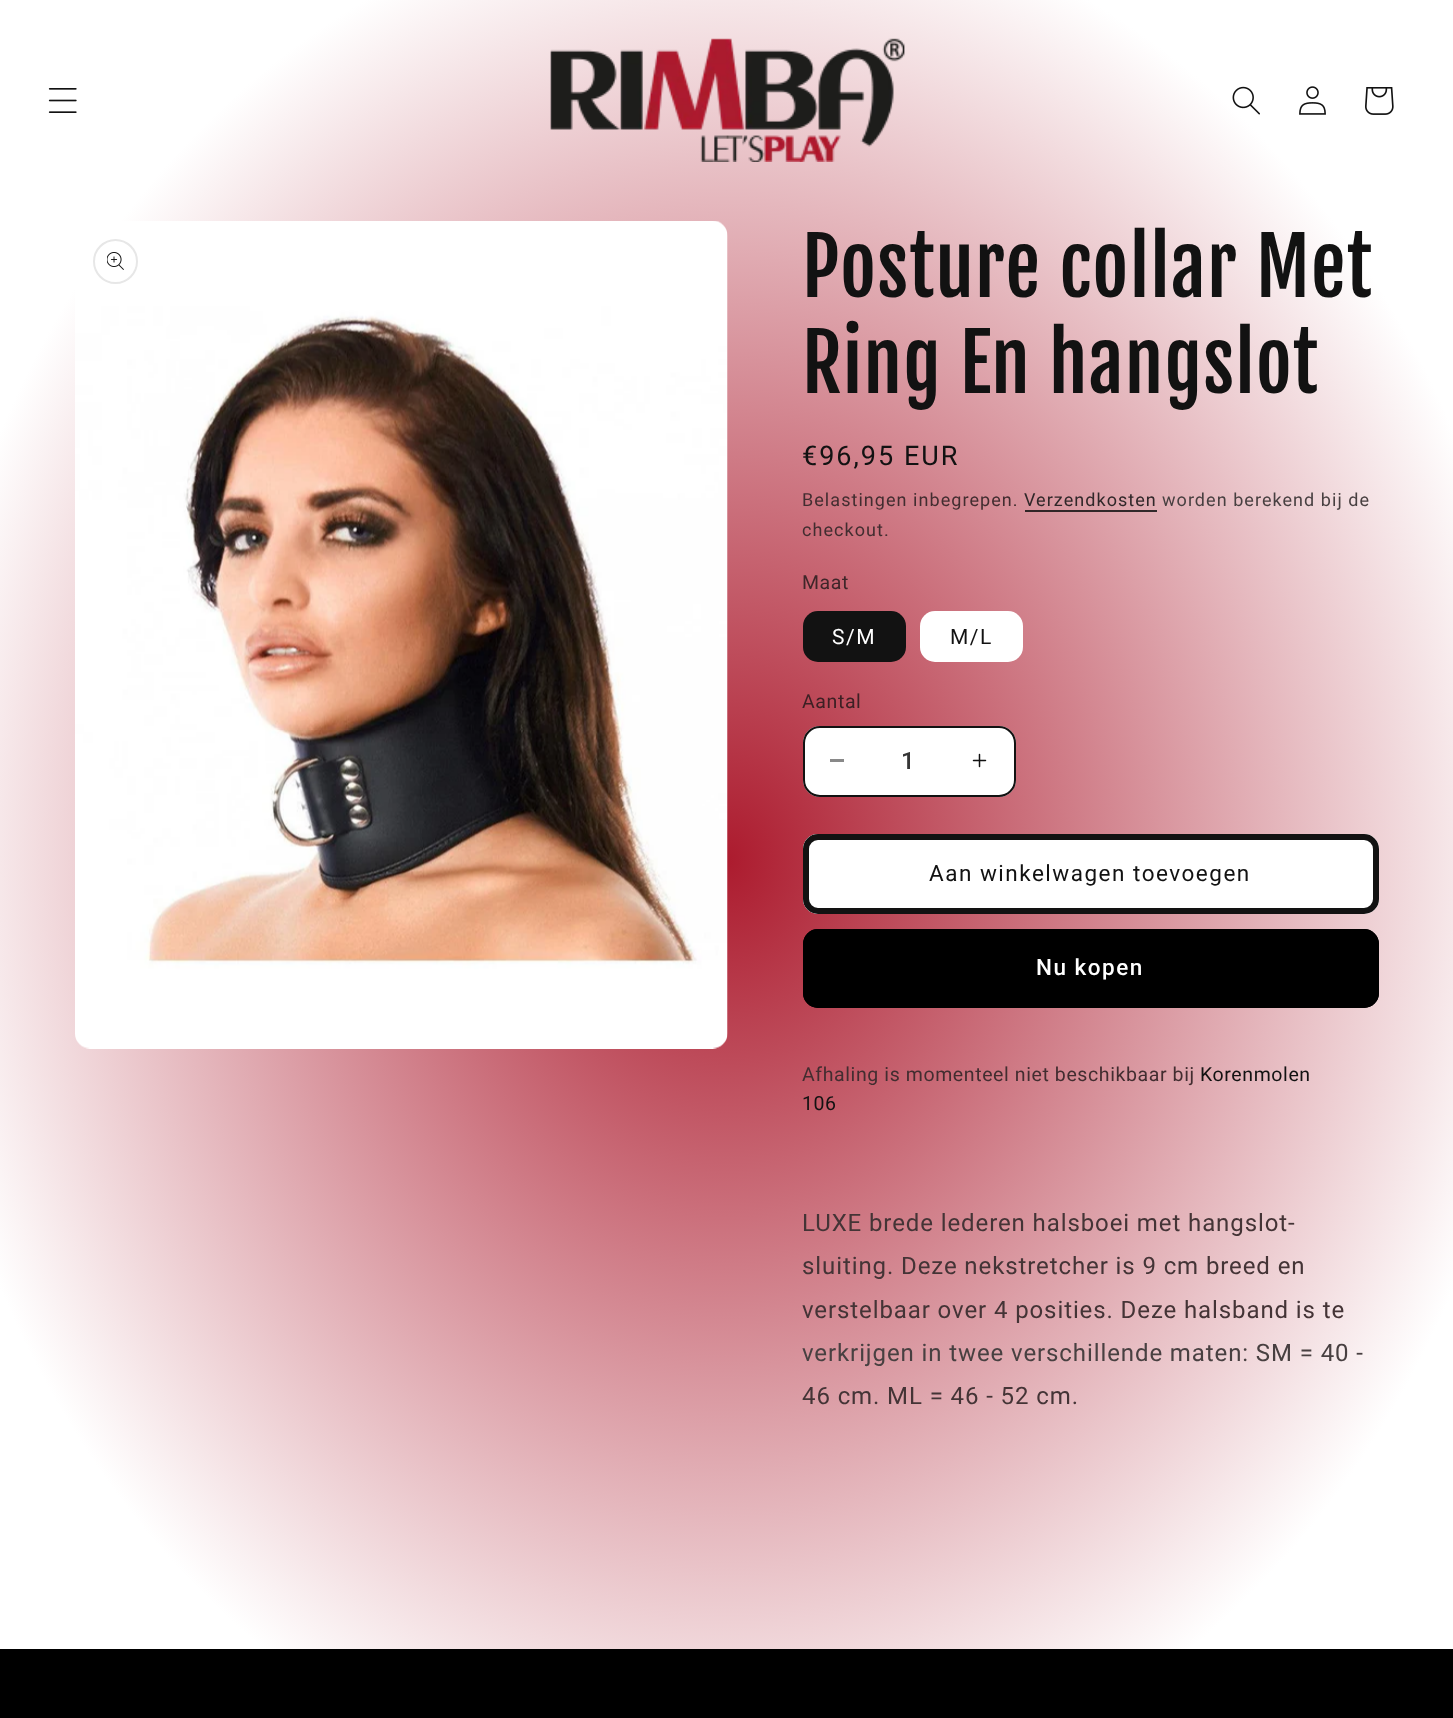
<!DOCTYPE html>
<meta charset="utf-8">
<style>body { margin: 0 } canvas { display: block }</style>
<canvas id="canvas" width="1453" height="1718"></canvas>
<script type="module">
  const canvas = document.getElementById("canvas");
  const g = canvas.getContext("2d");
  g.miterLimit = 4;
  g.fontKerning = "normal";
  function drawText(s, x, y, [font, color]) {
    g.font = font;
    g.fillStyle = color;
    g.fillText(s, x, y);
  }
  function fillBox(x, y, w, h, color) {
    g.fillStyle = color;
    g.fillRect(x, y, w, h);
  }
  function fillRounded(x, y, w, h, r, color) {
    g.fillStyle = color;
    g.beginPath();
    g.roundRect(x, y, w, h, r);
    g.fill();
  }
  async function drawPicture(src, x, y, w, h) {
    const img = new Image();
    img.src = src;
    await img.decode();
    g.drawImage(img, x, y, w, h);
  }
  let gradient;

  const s1 = ["78px Fjalla One", "#121212"];
  const s2 = ["27px Roboto", "#121212"];
  const s3 = ["18px Roboto", "#422D30"];
  const s4 = ["18px Roboto", "#302729"];
  const s5 = ["18px Roboto", "#484041"];
  const s6 = ["19.5px Roboto", "#3F2629"];
  const s7 = ["21px Roboto", "#FFFFFF"];
  const s8 = ["21px Roboto", "#121212"];
  const s9 = ["19.5px Roboto", "#3D2024"];
  const s10 = ["500 24px Roboto", "#363636"];
  const s11 = ["22.5px Roboto", "#121212"];
  const s12 = ["500 22.5px Roboto", "#FFFFFF"];
  const s13 = ["19.5px Roboto", "#422D30"];
  const s14 = ["19.5px Roboto", "#121212"];
  const s15 = ["24px Roboto", "#443436"];
  const s16 = ["24px Roboto", "#484041"];

  fillBox(0, 0, 1453, 1718, "#FFFFFF");
  gradient = g.createRadialGradient(727, 727.04, 0, 727, 727.04, 1028);
  gradient.addColorStop(0, "#AC1B2E");
  gradient.addColorStop(0.79, "#FFFFFF");
  gradient.addColorStop(0.97, "#FFFFFF");
  g.fillStyle = gradient;
  g.beginPath();
  g.rect(0, 0, 1453, 1649);
  g.save();
  g.clip();
  g.scale(1, 1216 / 1028);
  g.fillRect(0, 0, 1453, 1453);
  g.restore();
  gradient = g.createRadialGradient(727, 727.04, 0, 727, 727.04, 1028);
  gradient.addColorStop(0, "#291316");
  gradient.addColorStop(0.79, "#363636");
  gradient.addColorStop(0.97, "#363636");
  g.fillStyle = gradient;
  g.beginPath();
  g.rect(1025, 510, 132, 2);
  g.save();
  g.clip();
  g.scale(1, 1216 / 1028);
  g.fillRect(0, 0, 1453, 1453);
  g.restore();
  await drawPicture("pic1.png", 48, 88, 29, 25);
  await drawPicture("pic2.png", 550, 38, 355, 124);
  await drawPicture("pic3.png", 1232, 86, 28, 29);
  await drawPicture("pic4.png", 1299, 86, 27, 29);
  await drawPicture("pic5.png", 1365, 87, 29, 28);
  await drawPicture("pic6.png", 75, 221, 653, 828);
  g.beginPath();
  g.arc(115.5, 261.5, 21.5, 0, Math.PI * 2);
  g.strokeStyle = "#E7E7E7";
  g.lineWidth = 2;
  g.stroke();
  await drawPicture("pic7.png", 107, 252, 17, 18);
  g.letterSpacing = "1.2px";
  drawText("Posture collar Met", 802, 297, s1);
  drawText("Ring En hangslot", 802, 393, s1);
  g.letterSpacing = "2px";
  drawText("€96,95 EUR", 802, 465, s2);
  g.letterSpacing = "1.05px";
  drawText("Belastingen inbegrepen.", 802, 506, s3);
  drawText("Verzendkosten", 1024, 506, s4);
  drawText("worden berekend bij de", 1162, 506, s5);
  drawText("checkout.", 802, 536, s3);
  g.letterSpacing = "0.6px";
  drawText("Maat", 802, 589, s6);
  fillRounded(803, 611, 103, 51, 15, "#121212");
  g.letterSpacing = "1.5px";
  drawText("S/M", 832, 644, s7);
  fillRounded(920, 611, 103, 51, 15, "#FFFFFF");
  drawText("M/L", 950, 644, s8);
  g.letterSpacing = "0.6px";
  drawText("Aantal", 802, 708, s9);
  fillRounded(803, 726, 213, 71, 17, "#FFFFFF");
  fillBox(830, 759, 14, 3, "#898989");
  await drawPicture("pic8.png", 972, 753, 15, 15);
  g.beginPath();
  g.roundRect(804, 727, 211, 69, 16);
  g.strokeStyle = "#121212";
  g.stroke();
  g.letterSpacing = "0px";
  drawText("1", 901, 769, s10);
  fillRounded(803, 834, 576, 80, 15, "#FFFFFF");
  g.beginPath();
  g.roundRect(806, 837, 570, 74, 12);
  g.strokeStyle = "#FFFFFF";
  g.lineWidth = 6;
  g.stroke();
  g.beginPath();
  g.roundRect(806, 837, 570, 74, 12);
  g.strokeStyle = "#121212";
  g.stroke();
  g.letterSpacing = "1.5px";
  drawText("Aan winkelwagen toevoegen", 929, 881, s11);
  fillRounded(803, 929, 576, 79, 15, "#000000");
  g.beginPath();
  g.roundRect(806, 932, 570, 73, 12);
  g.strokeStyle = "#000000";
  g.stroke();
  drawText("Nu kopen", 1036, 975, s12);
  g.letterSpacing = "0.6px";
  drawText("Afhaling is momenteel niet beschikbaar bij", 802, 1081, s13);
  drawText("Korenmolen", 1200, 1081, s14);
  drawText("106", 802, 1110, s14);
  g.letterSpacing = "0.9px";
  drawText("LUXE brede lederen halsboei met hangslot-", 802, 1231, s15);
  drawText("sluiting. Deze nekstretcher is 9 cm breed en", 802, 1274, s15);
  drawText("verstelbaar over 4 posities. Deze halsband is te", 802, 1318, s15);
  drawText("verkrijgen in twee verschillende maten: SM = 40 -", 802, 1361, s16);
  drawText("46 cm. ML = 46 - 52 cm.", 802, 1404, s15);
  fillBox(0, 1649, 1453, 69, "#000000");
</script>
